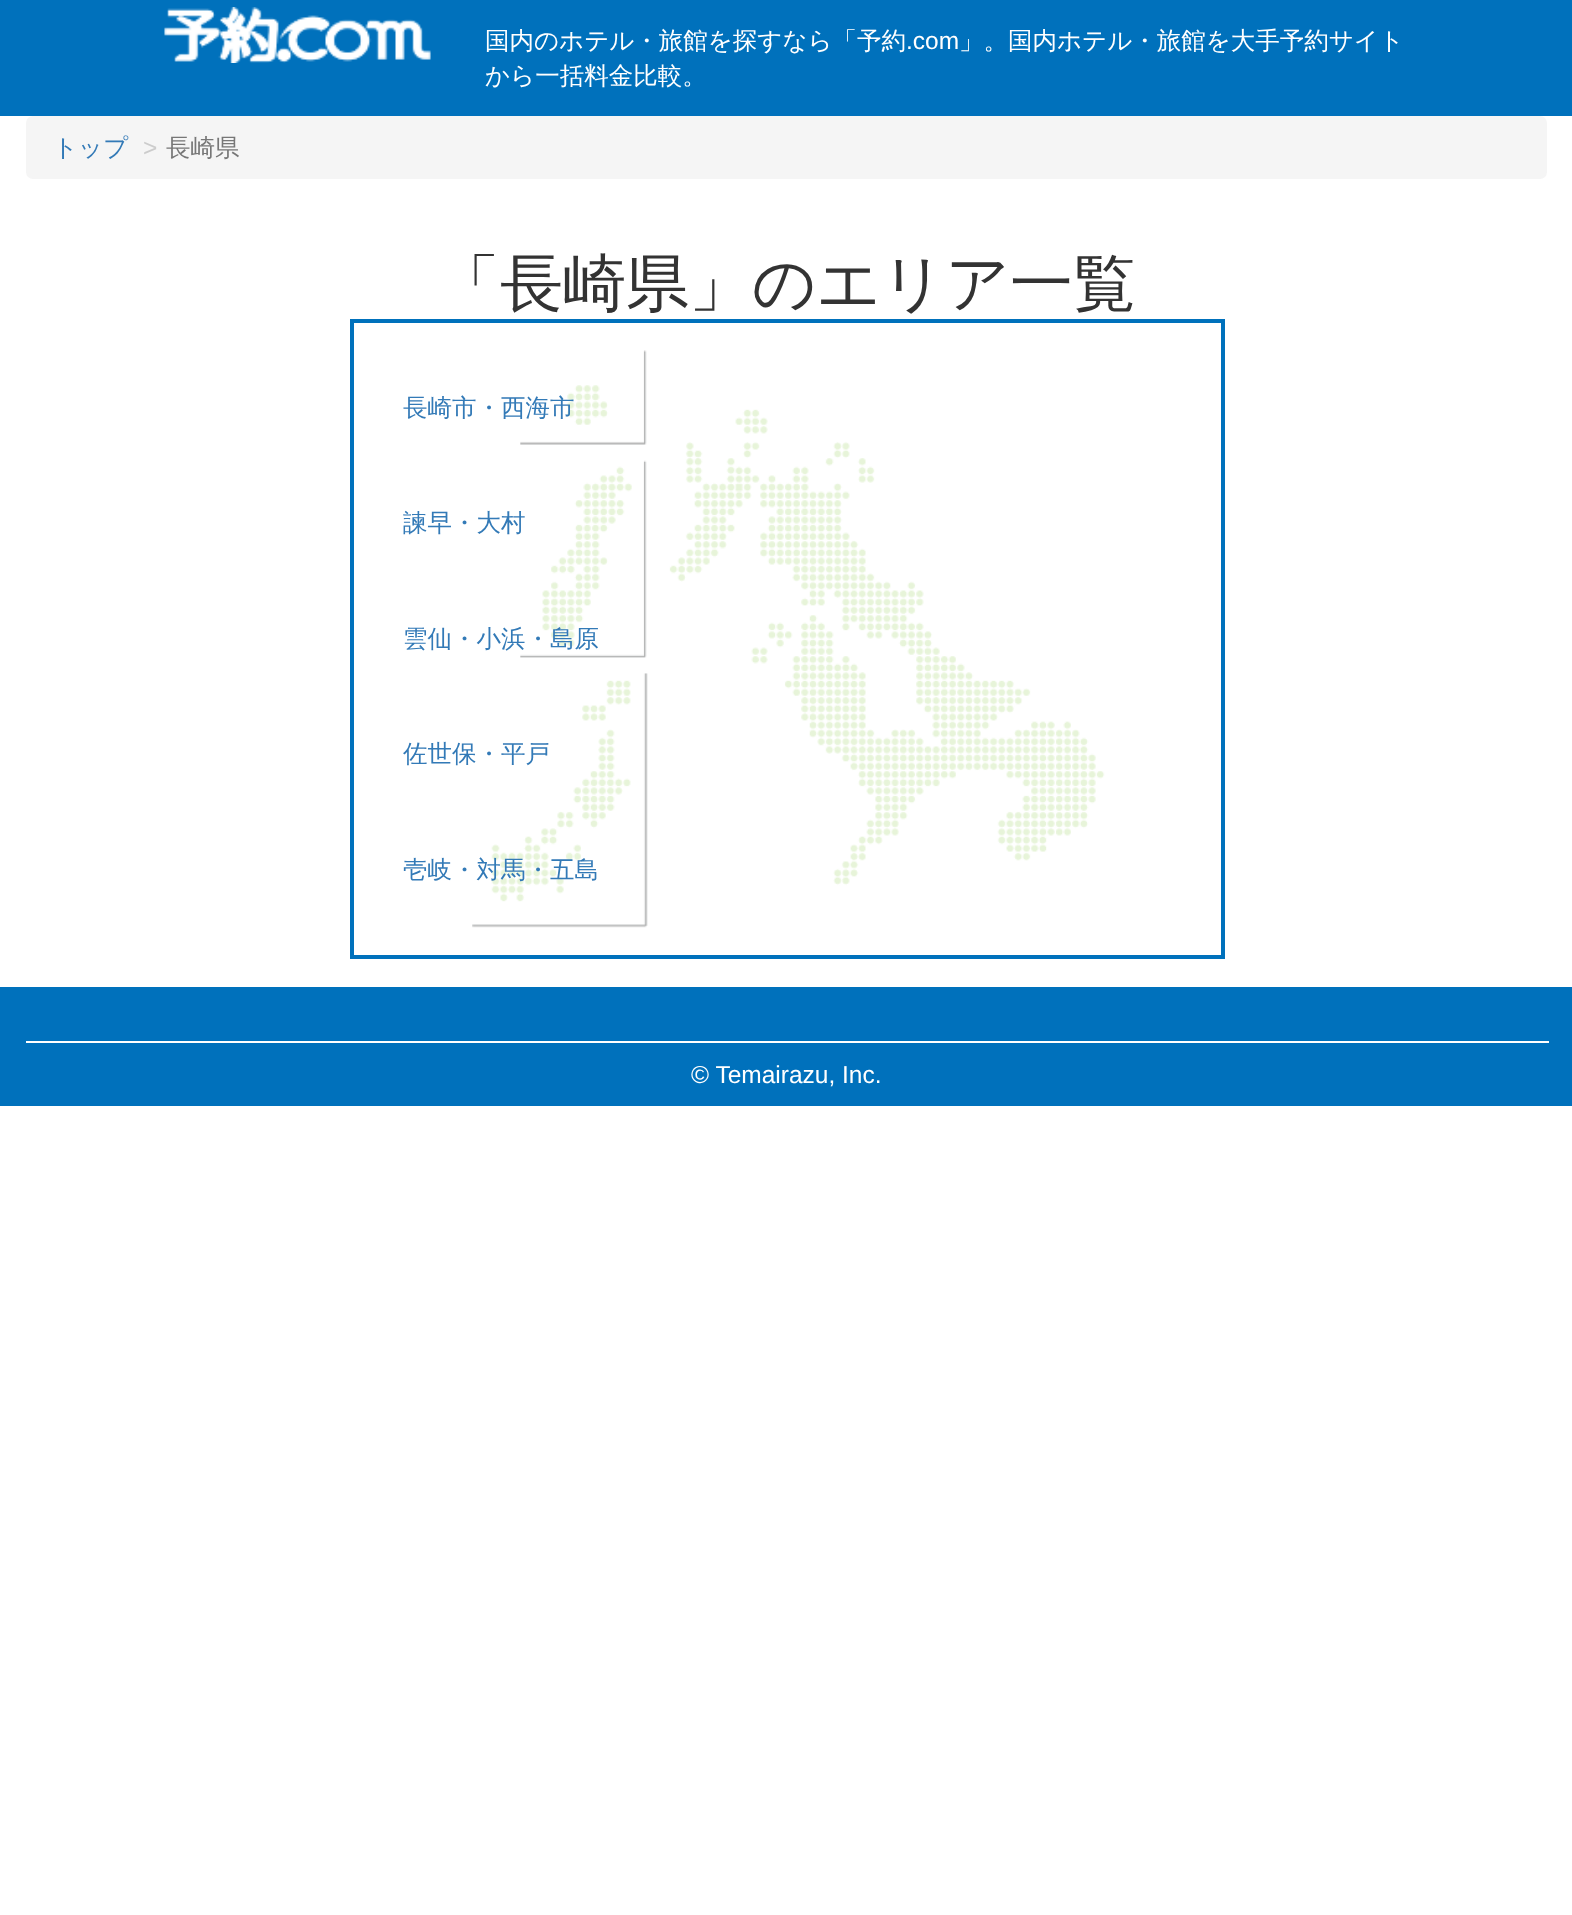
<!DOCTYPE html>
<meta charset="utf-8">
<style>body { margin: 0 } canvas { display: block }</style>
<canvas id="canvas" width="1572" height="1915"></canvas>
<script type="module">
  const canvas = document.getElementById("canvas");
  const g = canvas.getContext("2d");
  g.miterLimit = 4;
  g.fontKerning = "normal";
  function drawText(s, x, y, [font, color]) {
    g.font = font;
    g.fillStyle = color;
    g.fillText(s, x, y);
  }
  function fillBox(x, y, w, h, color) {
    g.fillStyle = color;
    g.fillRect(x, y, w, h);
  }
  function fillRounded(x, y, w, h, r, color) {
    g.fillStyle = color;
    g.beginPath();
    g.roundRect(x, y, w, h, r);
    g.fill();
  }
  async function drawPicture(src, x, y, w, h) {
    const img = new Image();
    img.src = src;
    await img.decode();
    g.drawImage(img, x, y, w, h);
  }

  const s1 = ["500 24.5px WenQuanYi Zen Hei", "#FFFFFF"];
  const s2 = ["24.5px Liberation Sans", "#FFFFFF"];
  const s3 = ["500 24.5px WenQuanYi Zen Hei", "#337AB7"];
  const s4 = ["24.5px Liberation Sans", "#CCCCCC"];
  const s5 = ["500 24.5px WenQuanYi Zen Hei", "#777777"];
  const s6 = ["500 63px WenQuanYi Zen Hei", "#333333"];

  fillBox(0, 0, 1572, 1915, "#FFFFFF");
  fillBox(0, 0, 1572, 116, "#0071BC");
  await drawPicture("pic1.png", 164, 7, 267, 56);
  drawText("国内のホテル・旅館を探すなら「予約", 485, 49, s1);
  drawText(".com", 906, 49, s2);
  drawText("」。国内ホテル・旅館を大手予約サイト", 959, 49, s1);
  drawText("から一括料金比較。", 485, 84, s1);
  fillRounded(26, 116, 1521, 63, 7, "#F5F5F5");
  drawText("トップ", 53, 156, s3);
  drawText(">", 143, 156, s4);
  drawText("長崎県", 166, 156, s5);
  drawText("「長崎県」のエリア一覧", 437, 305, s6);
  await drawPicture("pic2.png", 472, 350, 633, 578);
  g.strokeStyle = "#0071BC";
  g.lineWidth = 4;
  g.strokeRect(352, 321, 871, 636);
  drawText("長崎市・西海市", 403, 416, s3);
  drawText("諫早・大村", 403, 531, s3);
  drawText("雲仙・小浜・島原", 403, 647, s3);
  drawText("佐世保・平戸", 403, 762, s3);
  drawText("壱岐・対馬・五島", 403, 878, s3);
  fillBox(0, 987, 1572, 119, "#0071BC");
  fillBox(26, 1041, 1523, 2, "#FFFFFF");
  drawText("© Temairazu, Inc.", 691, 1083, s2);
</script>
